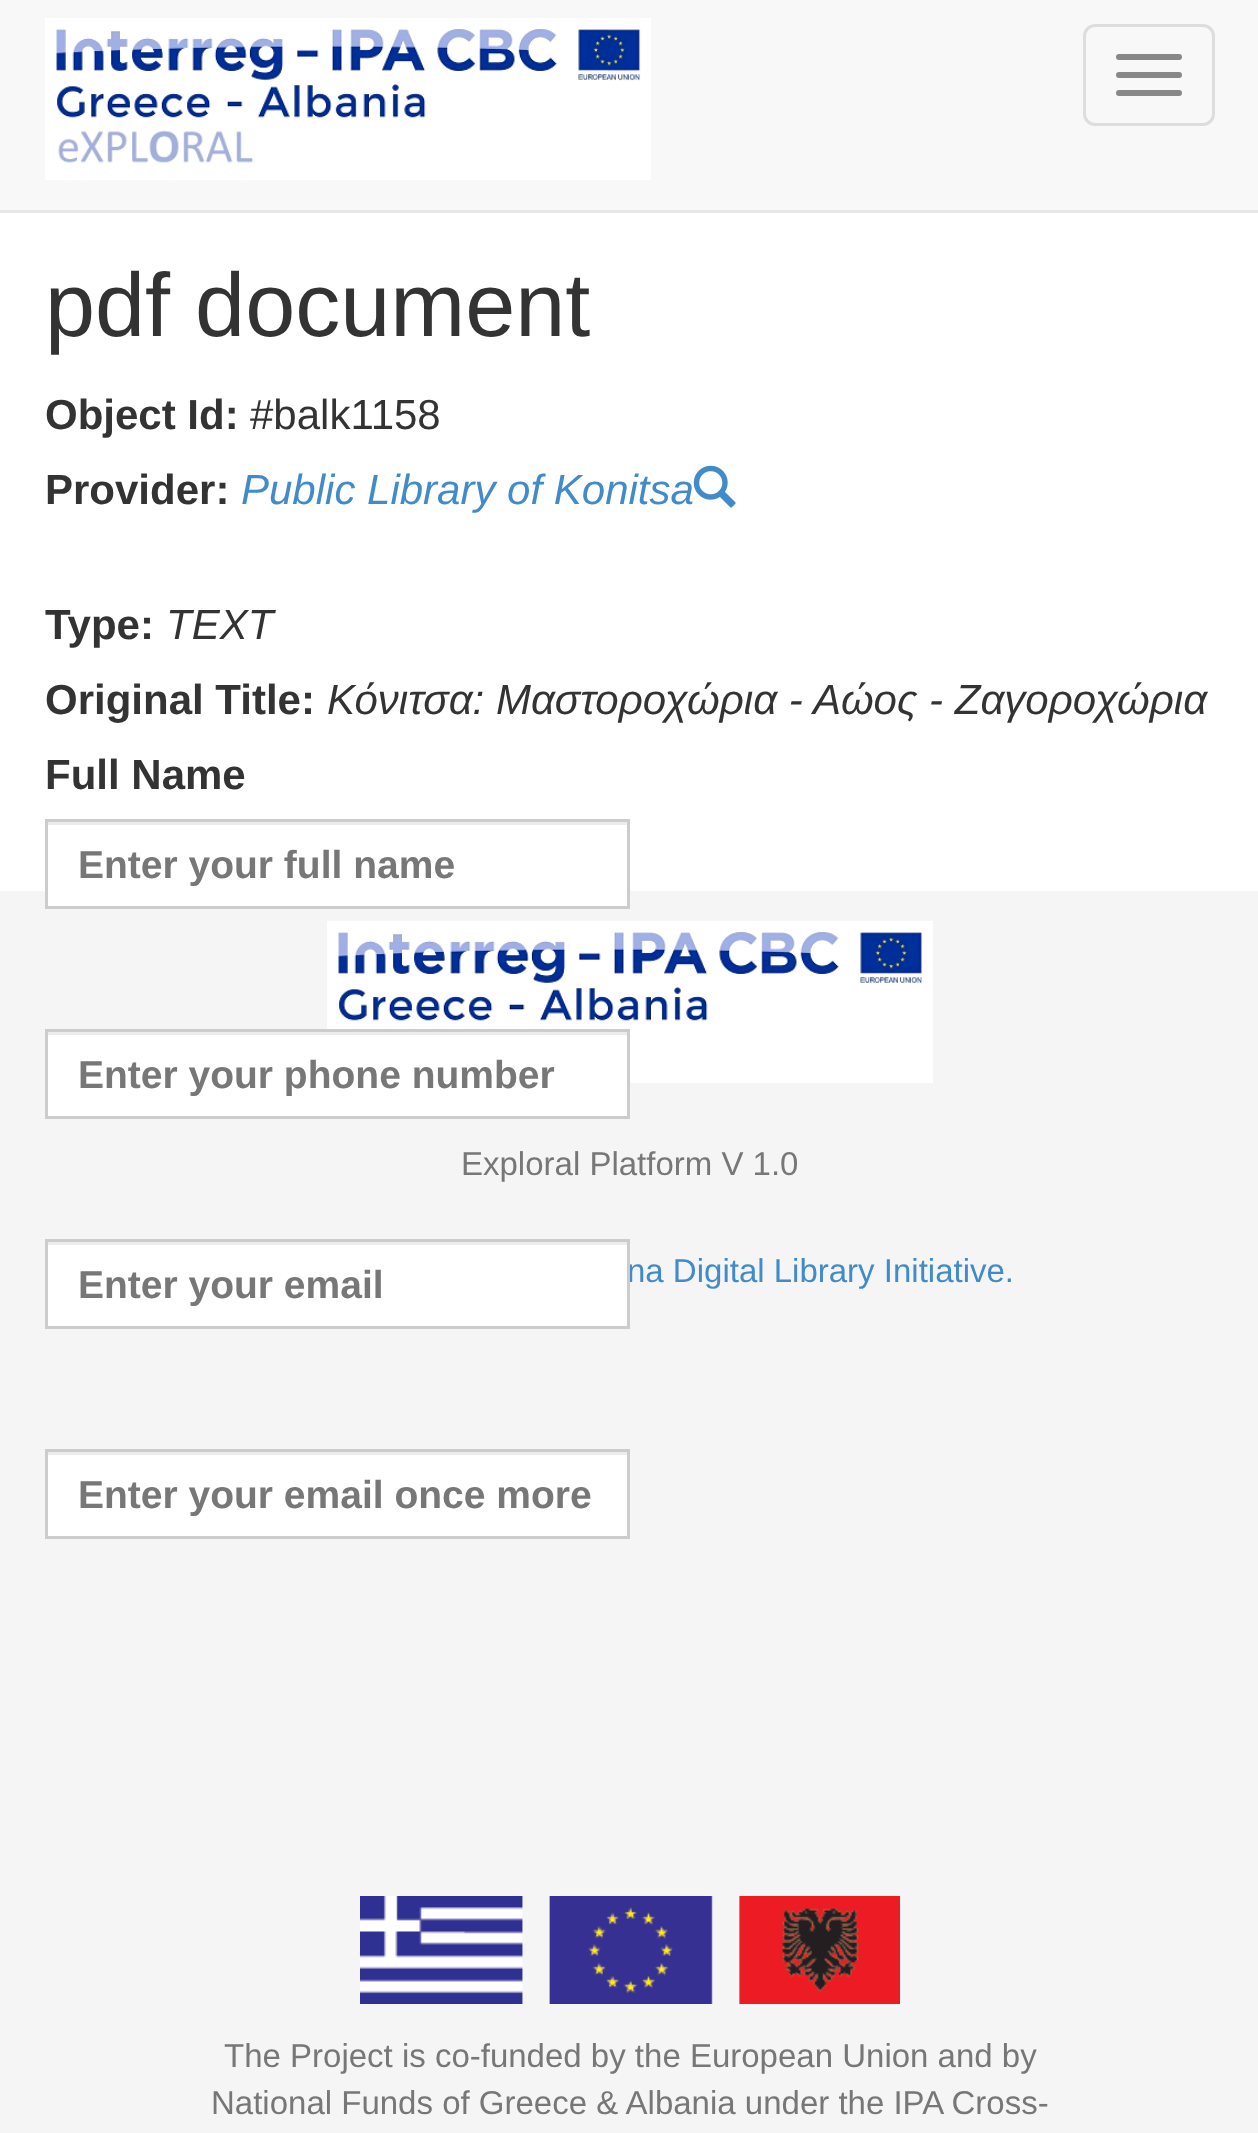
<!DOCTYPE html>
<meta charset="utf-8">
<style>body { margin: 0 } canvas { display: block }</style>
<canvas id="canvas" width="1258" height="2133"></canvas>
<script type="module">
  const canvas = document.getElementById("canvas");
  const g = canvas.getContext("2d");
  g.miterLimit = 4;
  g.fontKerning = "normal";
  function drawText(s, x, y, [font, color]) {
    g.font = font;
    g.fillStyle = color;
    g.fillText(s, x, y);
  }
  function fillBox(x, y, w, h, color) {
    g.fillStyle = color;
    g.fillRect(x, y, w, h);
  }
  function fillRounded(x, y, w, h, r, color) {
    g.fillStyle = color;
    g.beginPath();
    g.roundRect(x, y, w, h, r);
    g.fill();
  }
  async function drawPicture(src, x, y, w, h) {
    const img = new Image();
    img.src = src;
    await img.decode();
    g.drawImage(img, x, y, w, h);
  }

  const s1 = ["90px Liberation Sans", "#333333"];
  const s2 = ["bold 42px Liberation Sans", "#333333"];
  const s3 = ["42px Liberation Sans", "#333333"];
  const s4 = ["italic 42px Liberation Sans", "#428BCA"];
  const s5 = ["italic 42px Liberation Sans", "#333333"];
  const s6 = ["bold 39px Liberation Sans", "#777777"];
  const s7 = ["33px Liberation Sans", "#428BCA"];
  const s8 = ["33px Liberation Sans", "#777777"];

  fillBox(0, 0, 1258, 2133, "#FFFFFF");
  fillBox(0, 0, 1258, 210, "#F8F8F8");
  fillBox(0, 210, 1258, 3, "#E7E7E7");
  await drawPicture("pic1.png", 45, 18, 606, 162);
  g.beginPath();
  g.roundRect(1084.5, 25.5, 129, 99, 10.5);
  g.strokeStyle = "#DDDDDD";
  g.lineWidth = 3;
  g.stroke();
  fillRounded(1116, 54, 66, 6, 3, "#888888");
  fillRounded(1116, 72, 66, 6, 3, "#888888");
  fillRounded(1116, 90, 66, 6, 3, "#888888");
  drawText("pdf document", 45, 336, s1);
  drawText("Object Id:", 45, 429, s2);
  drawText("#balk1158", 250, 429, s3);
  drawText("Provider:", 45, 504, s2);
  drawText("Public Library of Konitsa", 241, 504, s4);
  await drawPicture("pic2.png", 693, 465, 43, 43);
  drawText("Type:", 45, 639, s2);
  drawText("TEXT", 166, 639, s5);
  drawText("Original Title:", 45, 714, s2);
  drawText("Κόνιτσα: Μαστοροχώρια - Αώος - Ζαγοροχώρια", 327, 714, s5);
  drawText("Full Name", 45, 789, s2);
  fillBox(0, 891, 1258, 1242, "#F5F5F5");
  fillBox(48, 891, 579, 15, "#FFFFFF");
  fillBox(48, 822, 579, 3, "#ECECEC");
  g.strokeStyle = "#CCCCCC";
  g.strokeRect(46.5, 820.5, 582, 87);
  drawText("Enter your full name", 78, 878, s6);
  await drawPicture("pic3.png", 327, 921, 606, 162);
  fillBox(48, 1035, 579, 81, "#FFFFFF");
  fillBox(48, 1032, 579, 3, "#ECECEC");
  g.strokeRect(46.5, 1030.5, 582, 87);
  drawText("Enter your phone number", 78, 1088, s6);
  fillBox(48, 1245, 579, 81, "#FFFFFF");
  fillBox(48, 1242, 579, 3, "#ECECEC");
  drawText("na Digital Library Initiative.", 627, 1282, s7);
  g.strokeRect(46.5, 1240.5, 582, 87);
  drawText("Enter your email", 78, 1298, s6);
  fillBox(48, 1455, 579, 81, "#FFFFFF");
  fillBox(48, 1452, 579, 3, "#ECECEC");
  g.strokeRect(46.5, 1450.5, 582, 87);
  drawText("Enter your email once more", 78, 1508, s6);
  drawText("Exploral Platform V 1.0", 461, 1175, s8);
  await drawPicture("pic4.png", 360, 1896, 540, 108);
  drawText("The Project is co-funded by the European Union and by", 224, 2067, s8);
  drawText("National Funds of Greece & Albania under the IPA Cross-", 211, 2114, s8);
</script>
